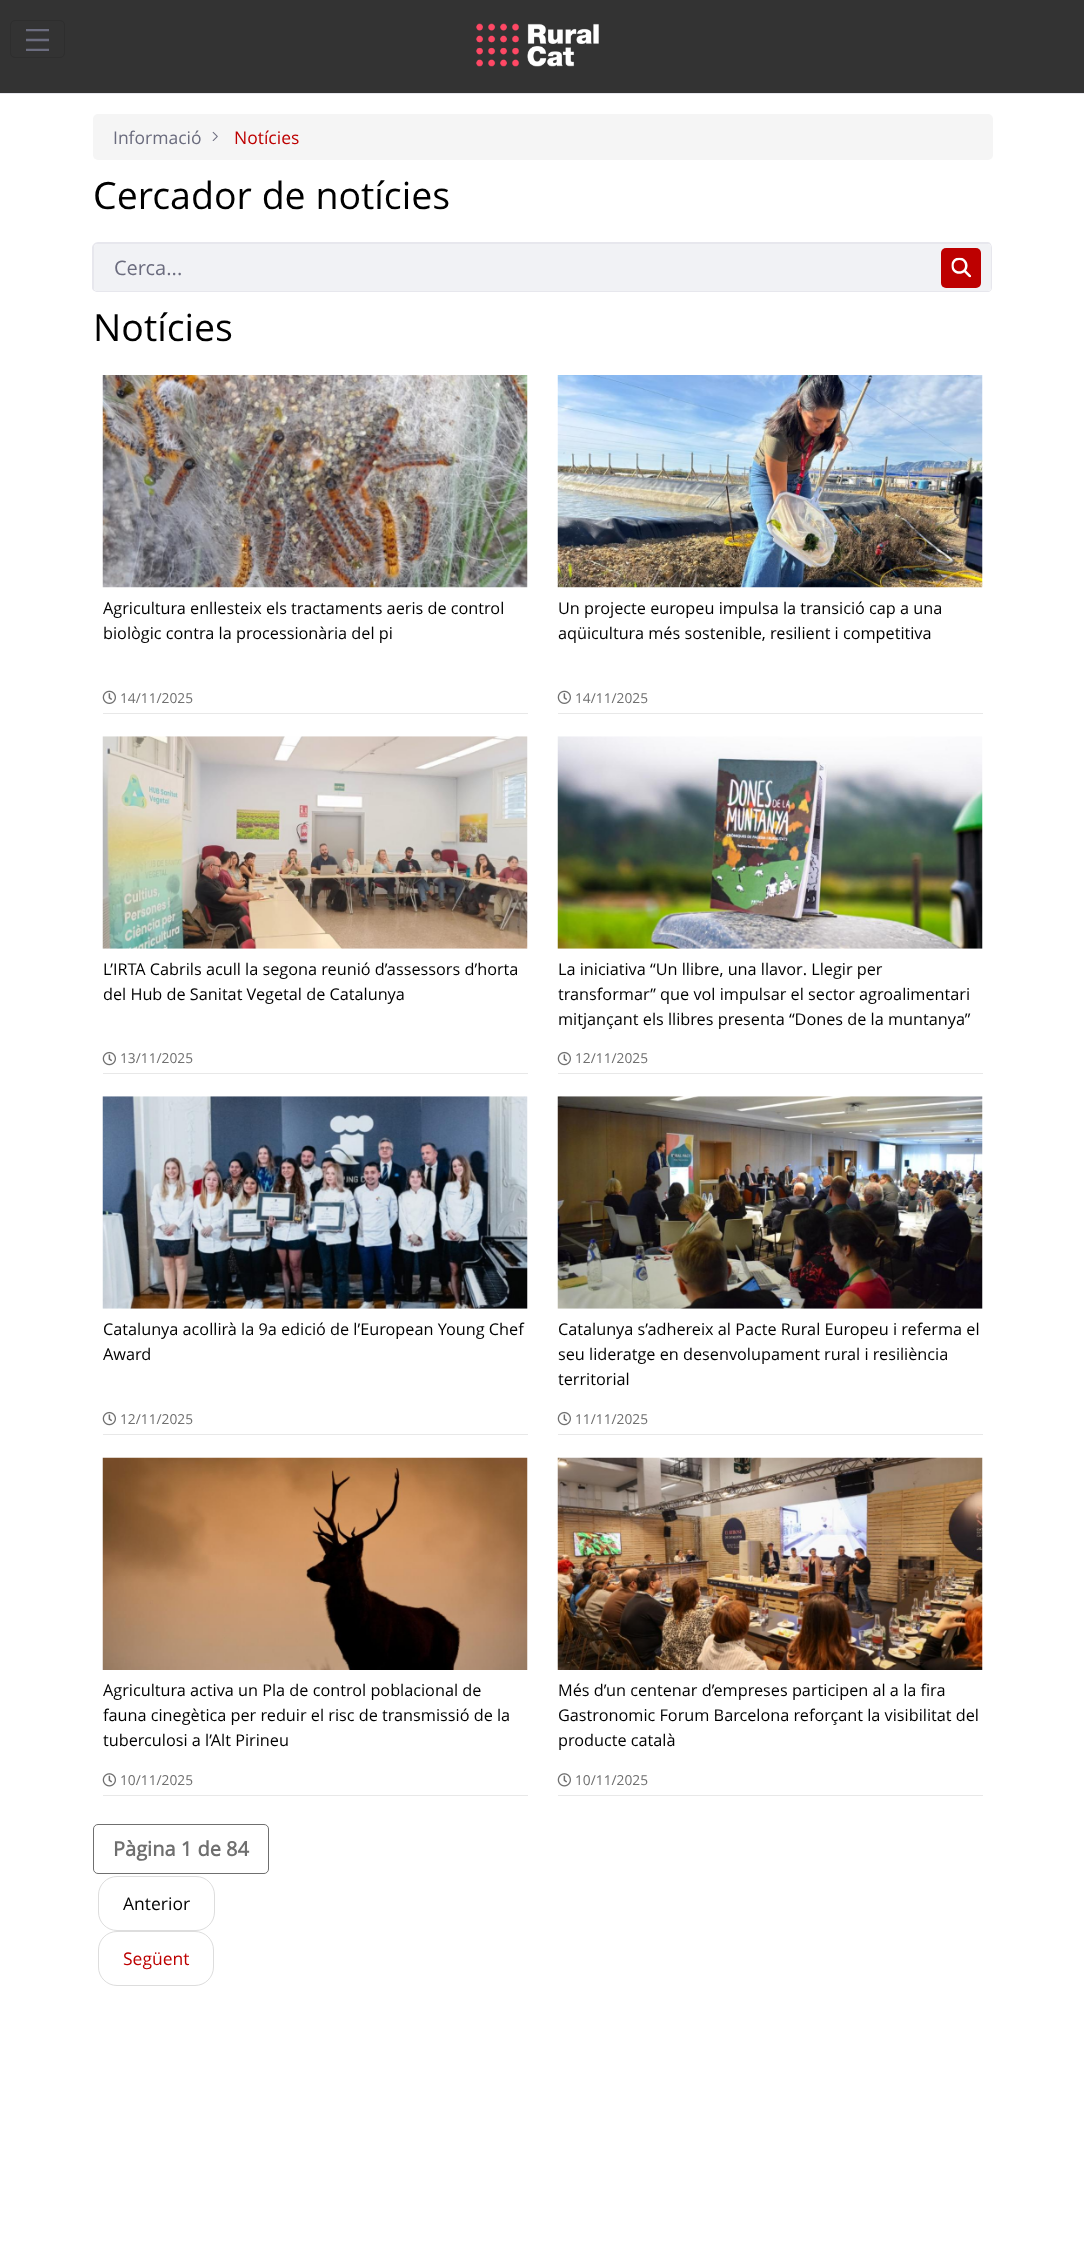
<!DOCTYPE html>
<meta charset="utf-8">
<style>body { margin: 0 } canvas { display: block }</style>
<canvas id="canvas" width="1084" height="2265"></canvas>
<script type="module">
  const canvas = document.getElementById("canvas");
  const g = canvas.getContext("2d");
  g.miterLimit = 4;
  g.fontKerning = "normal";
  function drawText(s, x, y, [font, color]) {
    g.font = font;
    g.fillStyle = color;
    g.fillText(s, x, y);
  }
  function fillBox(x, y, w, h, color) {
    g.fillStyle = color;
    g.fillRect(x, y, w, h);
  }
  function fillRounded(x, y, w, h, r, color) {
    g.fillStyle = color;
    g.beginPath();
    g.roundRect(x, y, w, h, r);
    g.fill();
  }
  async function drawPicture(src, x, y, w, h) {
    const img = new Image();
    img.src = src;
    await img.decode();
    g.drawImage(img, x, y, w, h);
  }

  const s1 = ["17.5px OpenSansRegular", "#6B6C7E"];
  const s2 = ["17.5px OpenSansRegular", "#BD0000"];
  const s3 = ["37.5px OpenSansRegular", "#000000"];
  const s4 = ["20px OpenSansRegular", "#6B6C7E"];
  const s5 = ["16.25px OpenSansRegular", "#000000"];
  const s6 = ["13.75px OpenSansRegular", "#6F6F6F"];
  const s7 = ["bold 20px OpenSansRegular", "#6F6F6F"];
  const s8 = ["17.5px OpenSansRegular", "#000000"];

  fillBox(0, 0, 1084, 2265, "#FFFFFF");
  fillBox(0, 0, 1084, 93, "#333333");
  fillBox(0, 93, 1084, 1, "#E7E7ED");
  g.beginPath();
  g.roundRect(10.5, 20.5, 54, 37, 4.5);
  g.strokeStyle = "#2E2E2E";
  g.stroke();
  g.save();
  g.beginPath();
  g.rect(26, 29, 23, 22);
  g.clip();
  g.beginPath();
  g.moveTo(24, 30);
  g.lineTo(51, 30);
  g.moveTo(24, 40);
  g.lineTo(51, 40);
  g.moveTo(24, 50);
  g.lineTo(51, 50);
  g.strokeStyle = "#6B6C7E";
  g.lineWidth = 2.5;
  g.lineCap = "round";
  g.stroke();
  g.restore();
  await drawPicture("pic1.png", 476, 23, 123, 44);
  fillRounded(93, 114, 900, 46, 5, "#F5F5F5");
  drawText("Informació", 113, 144, s1);
  await drawPicture("pic2.png", 212, 131, 6, 10);
  drawText("Notícies", 234, 144, s2);
  drawText("Cercador de notícies", 93, 209, s3);
  g.fillStyle = "#F1F2F5";
  g.beginPath();
  g.roundRect(94, 244, 837, 47, [4, 0, 0, 4]);
  g.fill();
  g.fillStyle = "#E7E7ED";
  g.beginPath();
  g.moveTo(98, 242);
  g.lineTo(931, 242);
  g.lineTo(931, 292);
  g.lineTo(98, 292);
  g.bezierCurveTo(95, 292, 92, 290, 92, 288);
  g.lineTo(92, 248);
  g.bezierCurveTo(92, 245, 95, 242, 98, 242);
  g.closePath();
  g.moveTo(98, 244);
  g.lineTo(931, 244);
  g.lineTo(931, 291);
  g.lineTo(98, 291);
  g.bezierCurveTo(95, 291, 94, 290, 94, 288);
  g.lineTo(94, 248);
  g.bezierCurveTo(94, 245, 95, 244, 98, 244);
  g.closePath();
  g.fill("evenodd");
  drawText("Cerca...", 114, 275, s4);
  g.fillStyle = "#F1F2F5";
  g.beginPath();
  g.roundRect(931, 244, 60, 47, [0, 4, 4, 0]);
  g.fill();
  g.fillStyle = "#E7E7ED";
  g.beginPath();
  g.moveTo(931, 242);
  g.lineTo(988, 242);
  g.bezierCurveTo(990, 242, 992, 245, 992, 248);
  g.lineTo(992, 288);
  g.bezierCurveTo(992, 290, 990, 292, 988, 292);
  g.lineTo(931, 292);
  g.closePath();
  g.moveTo(931, 244);
  g.lineTo(988, 244);
  g.bezierCurveTo(990, 244, 991, 245, 991, 248);
  g.lineTo(991, 288);
  g.bezierCurveTo(991, 290, 990, 291, 988, 291);
  g.lineTo(931, 291);
  g.closePath();
  g.fill("evenodd");
  fillRounded(941, 248, 40, 40, 5, "#BD0000");
  await drawPicture("pic3.png", 951, 257, 20, 21);
  drawText("Notícies", 93, 341, s3);
  await drawPicture("pic4.png", 102, 375, 426, 213);
  drawText("Agricultura enllesteix els tractaments aeris de control", 103, 614, s5);
  drawText("biològic contra la processionària del pi", 103, 639, s5);
  fillBox(103, 713, 425, 1, "#E8E8E8");
  await drawPicture("pic5.png", 102, 690, 14, 14);
  drawText("14/11/2025", 120, 703, s6);
  await drawPicture("pic6.png", 557, 375, 426, 213);
  drawText("Un projecte europeu impulsa la transició cap a una", 558, 614, s5);
  drawText("aqüicultura més sostenible, resilient i competitiva", 558, 639, s5);
  fillBox(558, 713, 425, 1, "#E8E8E8");
  await drawPicture("pic5.png", 557, 690, 14, 14);
  drawText("14/11/2025", 575, 703, s6);
  await drawPicture("pic7.png", 102, 736, 426, 213);
  drawText("L’IRTA Cabrils acull la segona reunió d’assessors d’horta", 103, 975, s5);
  drawText("del Hub de Sanitat Vegetal de Catalunya", 103, 1000, s5);
  fillBox(103, 1073, 425, 1, "#E8E8E8");
  await drawPicture("pic8.png", 102, 1051, 14, 15);
  drawText("13/11/2025", 120, 1063, s6);
  await drawPicture("pic9.png", 557, 736, 426, 213);
  drawText("La iniciativa “Un llibre, una llavor. Llegir per", 558, 975, s5);
  drawText("transformar” que vol impulsar el sector agroalimentari", 558, 1000, s5);
  drawText("mitjançant els llibres presenta “Dones de la muntanya”", 558, 1025, s5);
  fillBox(558, 1073, 425, 1, "#E8E8E8");
  await drawPicture("pic8.png", 557, 1051, 14, 15);
  drawText("12/11/2025", 575, 1063, s6);
  await drawPicture("pic10.png", 102, 1096, 426, 213);
  drawText("Catalunya acollirà la 9a edició de l’European Young Chef", 103, 1335, s5);
  drawText("Award", 103, 1360, s5);
  fillBox(103, 1434, 425, 1, "#E8E8E8");
  await drawPicture("pic8.png", 102, 1411, 14, 15);
  drawText("12/11/2025", 120, 1424, s6);
  await drawPicture("pic11.png", 557, 1096, 426, 213);
  drawText("Catalunya s’adhereix al Pacte Rural Europeu i referma el", 558, 1335, s5);
  drawText("seu lideratge en desenvolupament rural i resiliència", 558, 1360, s5);
  drawText("territorial", 558, 1385, s5);
  fillBox(558, 1434, 425, 1, "#E8E8E8");
  await drawPicture("pic8.png", 557, 1411, 14, 15);
  drawText("11/11/2025", 575, 1424, s6);
  await drawPicture("pic12.png", 102, 1457, 426, 213);
  drawText("Agricultura activa un Pla de control poblacional de", 103, 1696, s5);
  drawText("fauna cinegètica per reduir el risc de transmissió de la", 103, 1721, s5);
  drawText("tuberculosi a l’Alt Pirineu", 103, 1746, s5);
  fillBox(103, 1795, 425, 1, "#E8E8E8");
  await drawPicture("pic13.png", 102, 1773, 14, 14);
  drawText("10/11/2025", 120, 1785, s6);
  await drawPicture("pic14.png", 557, 1457, 426, 213);
  drawText("Més d’un centenar d’empreses participen al a la fira", 558, 1696, s5);
  drawText("Gastronomic Forum Barcelona reforçant la visibilitat del", 558, 1721, s5);
  drawText("producte català", 558, 1746, s5);
  fillBox(558, 1795, 425, 1, "#E8E8E8");
  await drawPicture("pic13.png", 557, 1773, 14, 14);
  drawText("10/11/2025", 575, 1785, s6);
  g.beginPath();
  g.roundRect(93.5, 1824.5, 175, 49, 4.5);
  g.strokeStyle = "#6F6F6F";
  g.stroke();
  drawText("Pàgina 1 de 84", 113, 1856, s7);
  g.beginPath();
  g.roundRect(98.5, 1876.5, 116, 54, 18.5);
  g.strokeStyle = "#DDDDDD";
  g.stroke();
  drawText("Anterior", 123, 1910, s8);
  g.beginPath();
  g.roundRect(98.5, 1931.5, 115, 54, 18.5);
  g.stroke();
  drawText("Següent", 123, 1965, s2);
</script>
